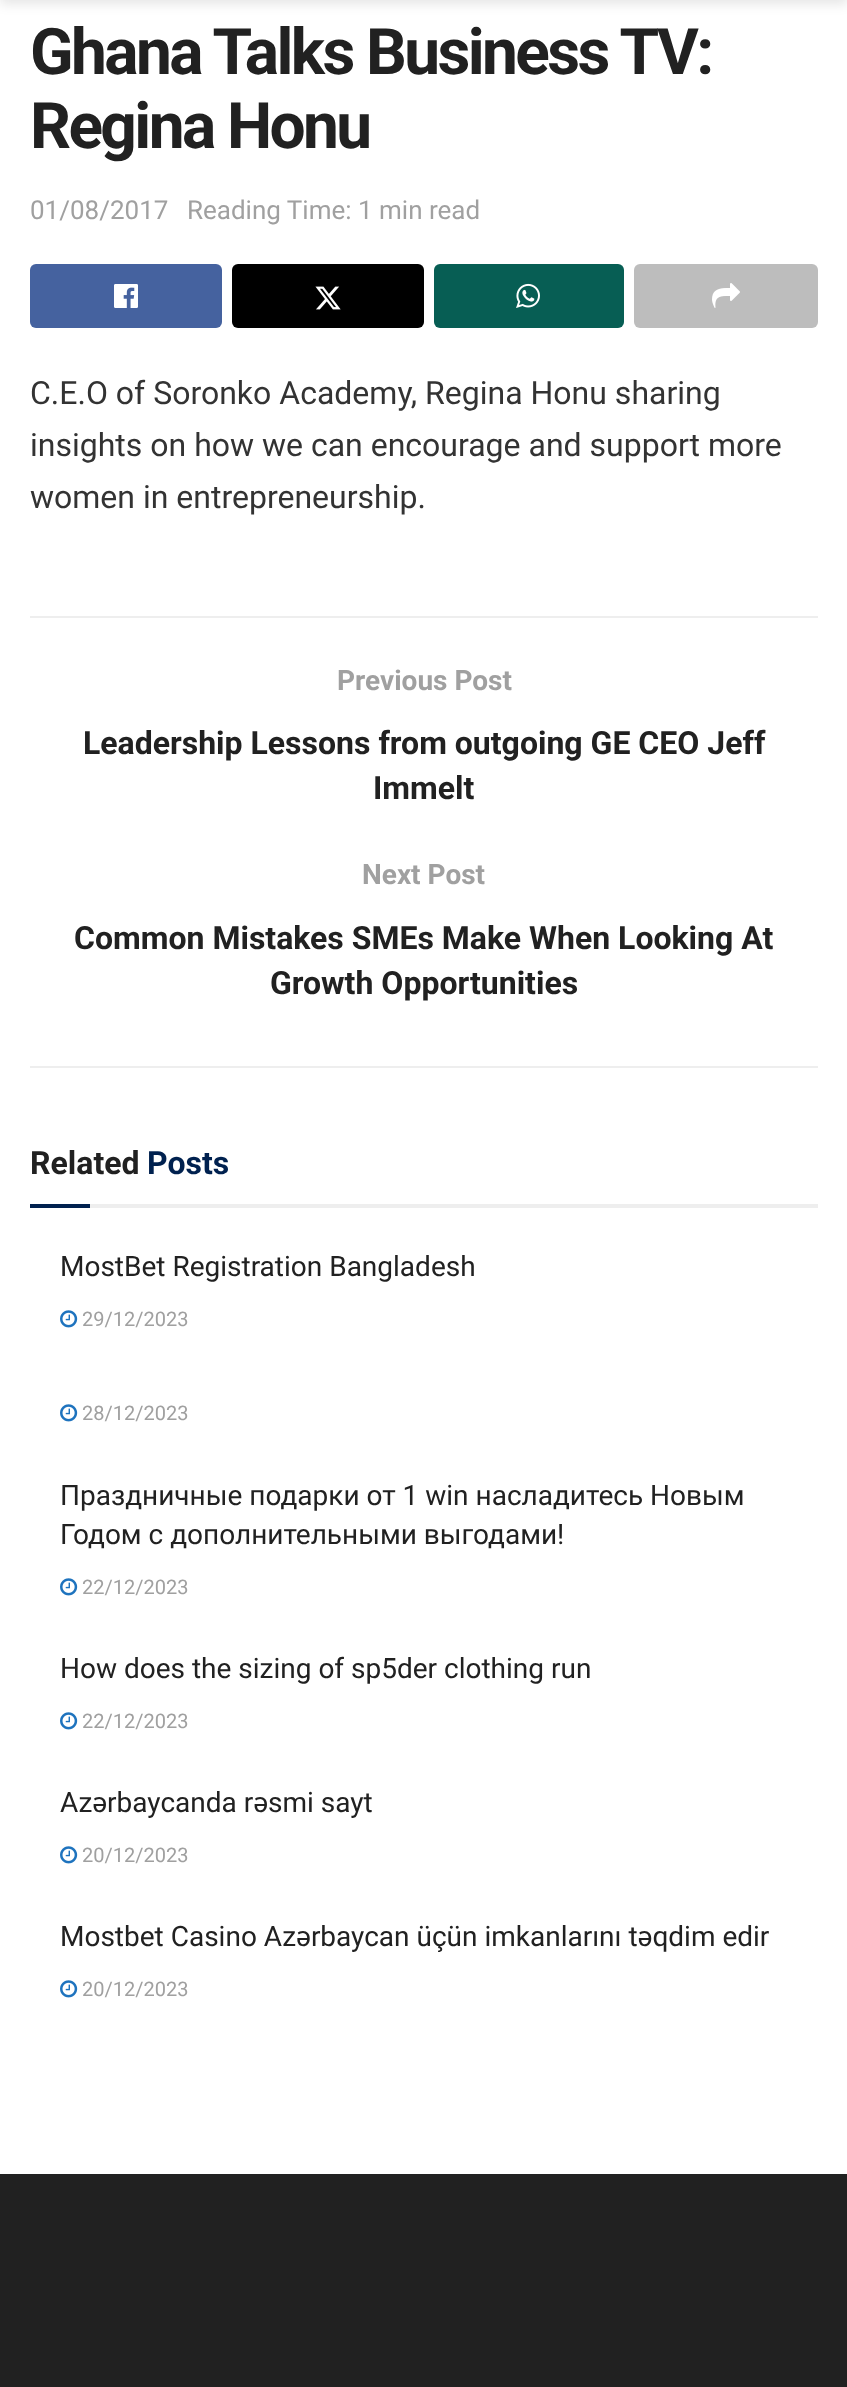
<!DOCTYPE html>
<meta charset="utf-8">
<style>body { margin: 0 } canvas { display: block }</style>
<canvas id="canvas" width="847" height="2387"></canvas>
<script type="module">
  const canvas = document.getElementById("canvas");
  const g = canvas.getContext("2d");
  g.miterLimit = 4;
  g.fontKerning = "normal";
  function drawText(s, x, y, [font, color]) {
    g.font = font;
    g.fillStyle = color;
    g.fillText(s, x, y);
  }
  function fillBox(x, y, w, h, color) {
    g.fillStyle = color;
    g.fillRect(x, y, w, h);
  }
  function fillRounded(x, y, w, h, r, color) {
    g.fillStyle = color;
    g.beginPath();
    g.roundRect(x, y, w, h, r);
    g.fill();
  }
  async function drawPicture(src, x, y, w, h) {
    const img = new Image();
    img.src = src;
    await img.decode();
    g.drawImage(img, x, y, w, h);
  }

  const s1 = ["bold 64px Roboto", "#212121"];
  const s2 = ["26px Roboto", "#A0A0A0"];
  const s3 = ["32px Roboto", "#333333"];
  const s4 = ["bold 28px Roboto", "#A0A0A0"];
  const s5 = ["bold 32px Roboto", "#212121"];
  const s6 = ["bold 32px Roboto", "#00214F"];
  const s7 = ["28px Roboto", "#212121"];
  const s8 = ["20px Roboto", "#A0A0A0"];

  fillBox(0, 0, 847, 2387, "#FFFFFF");
  g.fillStyle = "rgba(0, 0, 0, 0.1)";
  g.filter = "blur(6px)";
  g.beginPath();
  g.rect(0, -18, 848, 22);
  g.fill();
  g.filter = "none";
  g.letterSpacing = "-2.6px";
  drawText("Ghana Talks Business TV:", 30, 74, s1);
  drawText("Regina Honu", 30, 148, s1);
  g.letterSpacing = "0px";
  drawText("01/08/2017", 30, 219, s2);
  drawText("Reading Time: 1 min read", 187, 219, s2);
  fillRounded(30, 264, 192, 64, 6, "#45629F");
  await drawPicture("pic1.png", 114, 284, 24, 24);
  fillRounded(232, 264, 192, 64, 6, "#000000");
  await drawPicture("pic2.png", 315, 286, 26, 24);
  fillRounded(434, 264, 190, 64, 6, "#075E54");
  await drawPicture("pic3.png", 516, 283, 24, 25);
  fillRounded(634, 264, 184, 64, 6, "#BDBDBD");
  await drawPicture("pic4.png", 712, 283, 28, 25);
  drawText("C.E.O of Soronko Academy, Regina Honu sharing", 30, 404, s3);
  drawText("insights on how we can encourage and support more", 30, 456, s3);
  drawText("women in entrepreneurship.", 30, 508, s3);
  fillBox(30, 616, 788, 2, "#EEEEEE");
  fillBox(30, 1066, 788, 2, "#EEEEEE");
  drawText("Previous Post", 337, 690, s4);
  drawText("Leadership Lessons from outgoing GE CEO Jeff", 83, 754, s5);
  drawText("Immelt", 373, 799, s5);
  drawText("Next Post", 362, 884, s4);
  drawText("Common Mistakes SMEs Make When Looking At", 74, 949, s5);
  drawText("Growth Opportunities", 270, 994, s5);
  fillBox(90, 1204, 728, 4, "#EEEEEE");
  drawText("Related", 30, 1174, s5);
  drawText("Posts", 147, 1174, s6);
  fillBox(30, 1204, 60, 4, "#00214F");
  drawText("MostBet Registration Bangladesh", 60, 1276, s7);
  await drawPicture("pic5.png", 60, 1310, 18, 18);
  drawText("29/12/2023", 82, 1326, s8);
  await drawPicture("pic5.png", 60, 1404, 18, 18);
  drawText("28/12/2023", 82, 1420, s8);
  drawText("Праздничные подарки от 1 win насладитесь Новым", 60, 1505, s7);
  drawText("Годом с дополнительными выгодами!", 60, 1544, s7);
  await drawPicture("pic5.png", 60, 1578, 18, 18);
  drawText("22/12/2023", 82, 1594, s8);
  drawText("How does the sizing of sp5der clothing run", 60, 1678, s7);
  await drawPicture("pic5.png", 60, 1712, 18, 18);
  drawText("22/12/2023", 82, 1728, s8);
  drawText("Azərbaycanda rəsmi sayt", 60, 1812, s7);
  await drawPicture("pic5.png", 60, 1846, 18, 18);
  drawText("20/12/2023", 82, 1862, s8);
  drawText("Mostbet Casino Azərbaycan üçün imkanlarını təqdim edir", 60, 1946, s7);
  await drawPicture("pic5.png", 60, 1980, 18, 18);
  drawText("20/12/2023", 82, 1996, s8);
  fillBox(0, 2174, 847, 213, "#212121");
</script>
